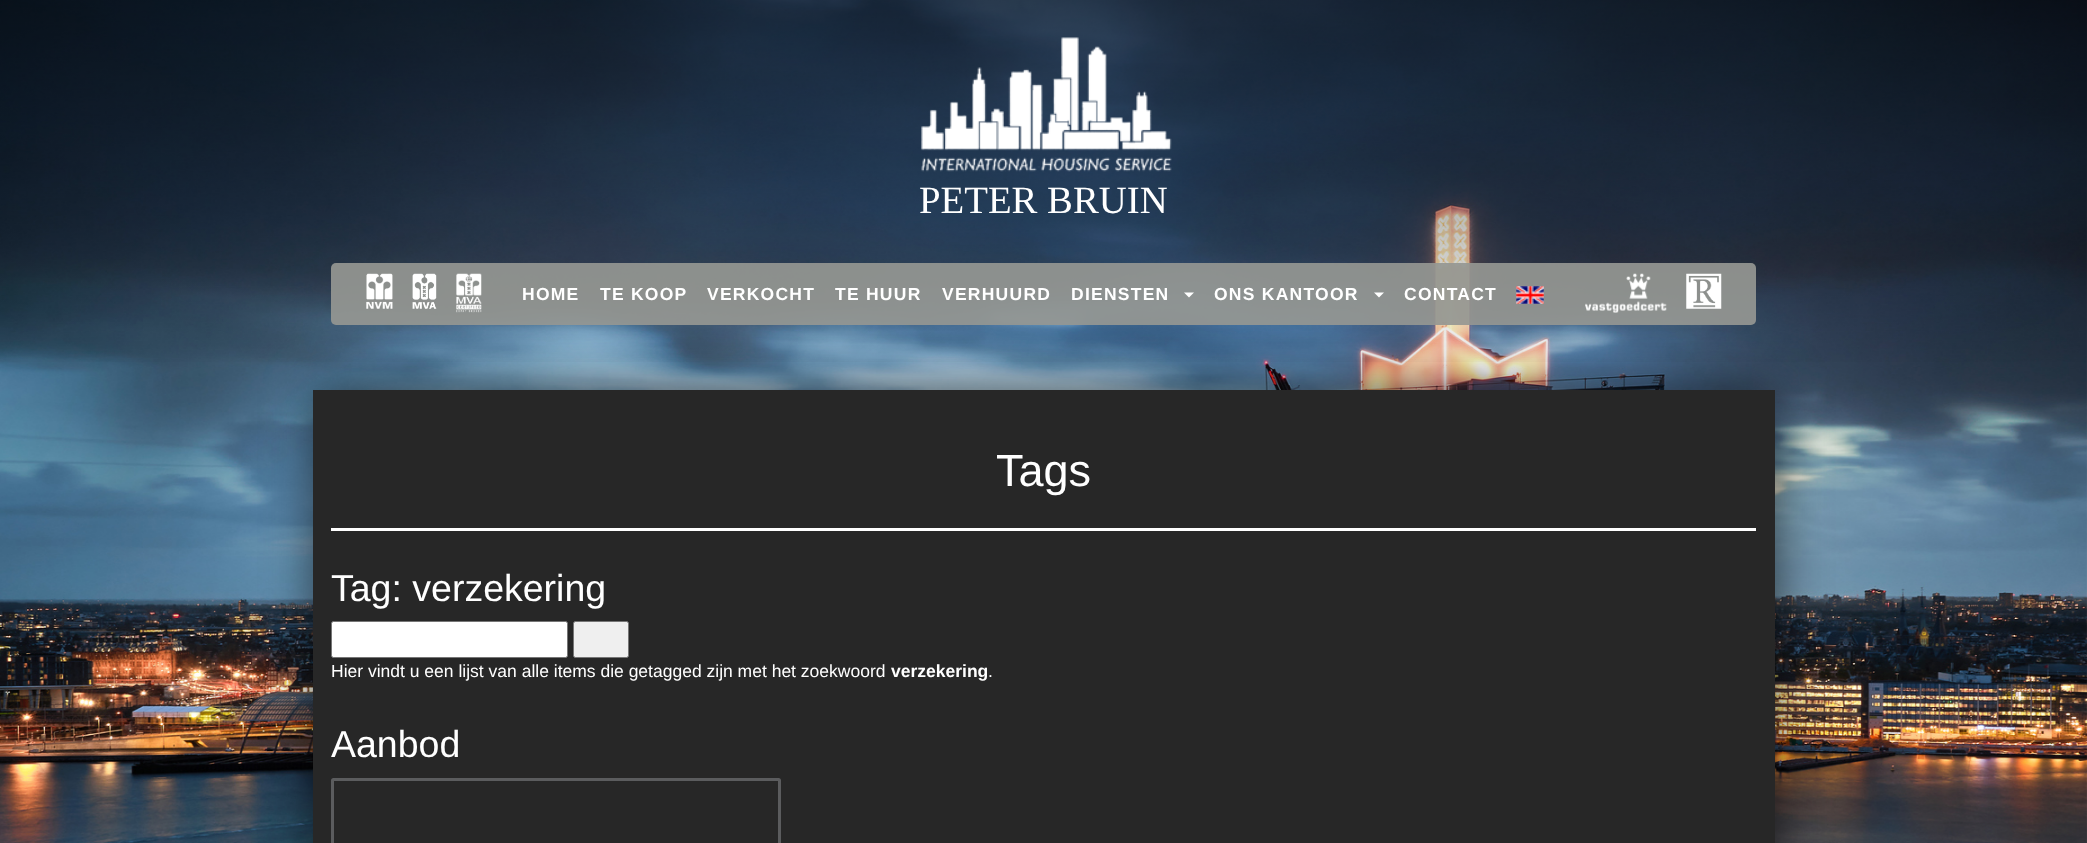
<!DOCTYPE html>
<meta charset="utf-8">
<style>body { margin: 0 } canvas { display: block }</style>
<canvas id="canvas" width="2087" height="843"></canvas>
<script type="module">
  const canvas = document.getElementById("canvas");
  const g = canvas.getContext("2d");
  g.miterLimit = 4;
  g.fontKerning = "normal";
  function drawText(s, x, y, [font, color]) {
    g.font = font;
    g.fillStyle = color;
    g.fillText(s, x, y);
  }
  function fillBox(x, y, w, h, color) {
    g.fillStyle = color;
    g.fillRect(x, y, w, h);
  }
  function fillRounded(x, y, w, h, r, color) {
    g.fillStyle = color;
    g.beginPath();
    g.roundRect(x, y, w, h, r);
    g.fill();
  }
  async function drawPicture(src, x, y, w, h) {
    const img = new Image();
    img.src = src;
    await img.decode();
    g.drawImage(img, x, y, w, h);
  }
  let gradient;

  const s1 = ["38.75px Liberation Serif", "#FFFFFF"];
  const s2 = ["bold 17.5px Liberation Sans", "#FFFFFF"];
  const s3 = ["45px Liberation Sans", "#FFFFFF"];
  const s4 = ["37.5px Liberation Sans", "#FFFFFF"];
  const s5 = ["17.5px Liberation Sans", "#FFFFFF"];

  fillBox(0, 0, 2087, 843, "#FFFFFF");
  await drawPicture("pic1.png", 0, 0, 2087, 843);
  g.fillStyle = "rgba(0, 0, 0, 0.62)";
  g.filter = "blur(25px)";
  g.beginPath();
  g.rect(315, 386, 1463, 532);
  g.fill();
  g.filter = "none";
  gradient = g.createLinearGradient(1044, 0, 1044, 375);
  gradient.addColorStop(0, "rgba(0, 0, 0, 0.6)");
  gradient.addColorStop(1, "rgba(0, 0, 0, 0)");
  g.fillStyle = gradient;
  g.fillRect(0, 0, 2087, 362);
  await drawPicture("pic2.png", 921, 37, 251, 135);
  drawText("PETER BRUIN", 919, 213, s1);
  fillRounded(331, 263, 1425, 62, 5, "rgba(149, 151, 147, 0.92)");
  await drawPicture("pic3.png", 366, 273, 27, 36);
  await drawPicture("pic4.png", 412, 273, 25, 36);
  await drawPicture("pic5.png", 456, 273, 26, 40);
  g.letterSpacing = "1.25px";
  drawText("HOME", 522, 300, s2);
  drawText("TE KOOP", 600, 300, s2);
  drawText("VERKOCHT", 707, 300, s2);
  drawText("TE HUUR", 835, 300, s2);
  drawText("VERHUURD", 942, 300, s2);
  drawText("DIENSTEN", 1071, 300, s2);
  g.beginPath();
  g.moveTo(1184, 292.5);
  g.lineTo(1194, 292.5);
  g.lineTo(1189, 297.5);
  g.closePath();
  g.fill();
  drawText("ONS KANTOOR", 1214, 300, s2);
  g.beginPath();
  g.moveTo(1374, 292.5);
  g.lineTo(1384, 292.5);
  g.lineTo(1379, 297.5);
  g.closePath();
  g.fill();
  drawText("CONTACT", 1404, 300, s2);
  await drawPicture("pic6.png", 1516, 286, 28, 18);
  await drawPicture("pic7.png", 1585, 273, 82, 40);
  await drawPicture("pic8.png", 1686, 273, 36, 36);
  fillBox(313, 390, 1462, 453, "#272727");
  fillBox(331, 528, 1425, 3, "#FFFFFF");
  g.letterSpacing = "0px";
  drawText("Tags", 996, 486, s3);
  drawText("Tag: verzekering", 331, 601, s4);
  g.beginPath();
  g.roundRect(331.5, 621.5, 236, 36, 2);
  g.fill();
  g.strokeStyle = "#767676";
  g.stroke();
  g.fillStyle = "#EFEFEF";
  g.beginPath();
  g.roundRect(573.5, 621.5, 55, 36, 2);
  g.fill();
  g.stroke();
  drawText("Hier vindt u een lijst van alle items die getagged zijn met het zoekwoord", 331, 677, s5);
  drawText("verzekering", 891, 677, s2);
  drawText(".", 988, 677, s5);
  drawText("Aanbod", 331, 757, s4);
  g.beginPath();
  g.roundRect(332.5, 779.5, 447, 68, 1);
  g.strokeStyle = "#5B5C5E";
  g.lineWidth = 3;
  g.stroke();
</script>
